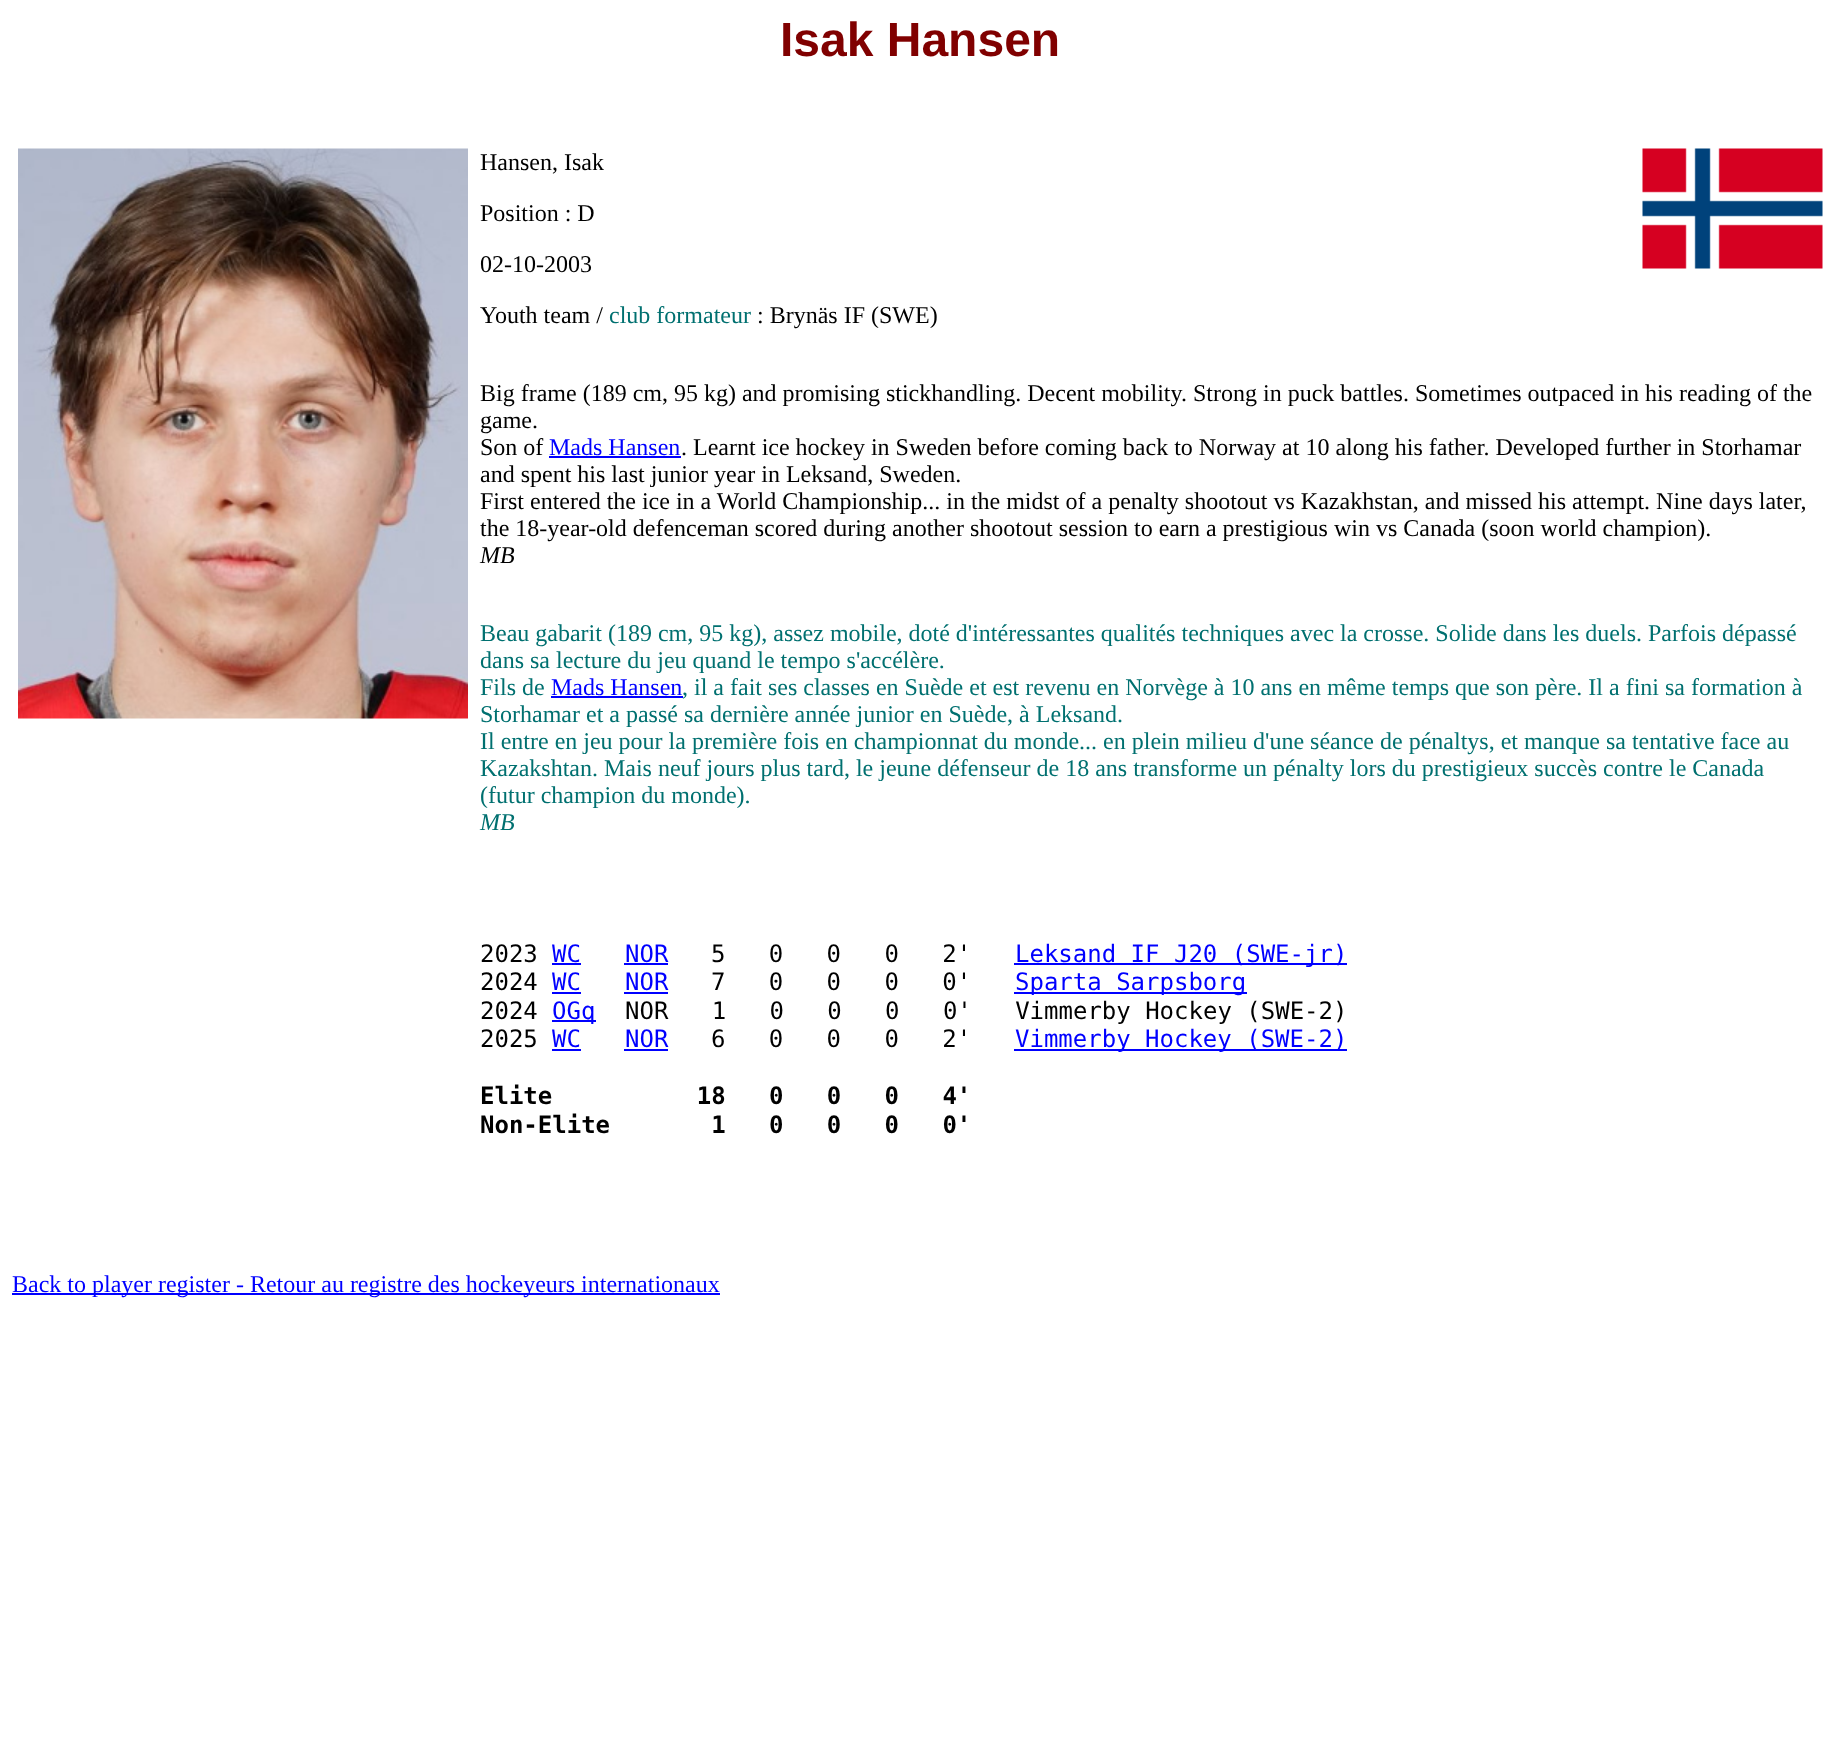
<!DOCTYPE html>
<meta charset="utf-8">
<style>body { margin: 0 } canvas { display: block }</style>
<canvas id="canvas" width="1840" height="1740"></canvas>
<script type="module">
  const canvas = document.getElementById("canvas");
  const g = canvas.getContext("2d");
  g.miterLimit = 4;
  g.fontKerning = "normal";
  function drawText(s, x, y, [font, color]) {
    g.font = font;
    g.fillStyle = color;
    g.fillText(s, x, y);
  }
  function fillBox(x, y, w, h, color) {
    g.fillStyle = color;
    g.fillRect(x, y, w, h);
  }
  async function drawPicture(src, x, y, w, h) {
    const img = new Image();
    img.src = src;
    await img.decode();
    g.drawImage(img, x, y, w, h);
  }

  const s1 = ["bold 48px Liberation Sans", "#800000"];
  const s2 = ["24px Liberation Serif", "#000000"];
  const s3 = ["24px Liberation Serif", "#007070"];
  const s4 = ["24px Liberation Serif", "#0000FF"];
  const s5 = ["italic 24px Liberation Serif", "#000000"];
  const s6 = ["italic 24px Liberation Serif", "#007070"];
  const s7 = ["24px DejaVu Sans Mono", "#000000"];
  const s8 = ["24px DejaVu Sans Mono", "#0000FF"];
  const s9 = ["bold 24px DejaVu Sans Mono", "#000000"];

  fillBox(0, 0, 1840, 1740, "#FFFFFF");
  drawText("Isak Hansen", 780, 56, s1);
  await drawPicture("pic1.png", 18, 148, 450, 571);
  drawText("Hansen, Isak", 480, 170, s2);
  await drawPicture("pic2.png", 1642, 148, 181, 121);
  drawText("Position : D", 480, 221, s2);
  drawText("02-10-2003", 480, 272, s2);
  drawText("Youth team /", 480, 323, s2);
  drawText("club formateur", 609, 323, s3);
  drawText(": Brynäs IF (SWE)", 757, 323, s2);
  drawText("Big frame (189 cm, 95 kg) and promising stickhandling. Decent mobility. Strong in puck battles. Sometimes outpaced in his reading of the", 480, 401, s2);
  drawText("game.", 480, 428, s2);
  drawText("Son of", 480, 455, s2);
  drawText("Mads Hansen", 549, 455, s4);
  fillBox(549, 456, 132, 2, "#0000FF");
  drawText(". Learnt ice hockey in Sweden before coming back to Norway at 10 along his father. Developed further in Storhamar", 681, 455, s2);
  drawText("and spent his last junior year in Leksand, Sweden.", 480, 482, s2);
  drawText("First entered the ice in a World Championship... in the midst of a penalty shootout vs Kazakhstan, and missed his attempt. Nine days later,", 480, 509, s2);
  drawText("the 18-year-old defenceman scored during another shootout session to earn a prestigious win vs Canada (soon world champion).", 480, 536, s2);
  drawText("MB", 480, 563, s5);
  drawText("Beau gabarit (189 cm, 95 kg), assez mobile, doté d'intéressantes qualités techniques avec la crosse. Solide dans les duels. Parfois dépassé", 480, 641, s3);
  drawText("dans sa lecture du jeu quand le tempo s'accélère.", 480, 668, s3);
  drawText("Fils de", 480, 695, s3);
  drawText("Mads Hansen", 551, 695, s4);
  fillBox(551, 696, 132, 2, "#0000FF");
  drawText(", il a fait ses classes en Suède et est revenu en Norvège à 10 ans en même temps que son père. Il a fini sa formation à", 682, 695, s3);
  drawText("Storhamar et a passé sa dernière année junior en Suède, à Leksand.", 480, 722, s3);
  drawText("Il entre en jeu pour la première fois en championnat du monde... en plein milieu d'une séance de pénaltys, et manque sa tentative face au", 480, 749, s3);
  drawText("Kazakshtan. Mais neuf jours plus tard, le jeune défenseur de 18 ans transforme un pénalty lors du prestigieux succès contre le Canada", 480, 776, s3);
  drawText("(futur champion du monde).", 480, 803, s3);
  drawText("MB", 480, 830, s6);
  drawText("2023", 480, 962, s7);
  drawText("WC", 552, 962, s8);
  fillBox(552, 963, 29, 2, "#0000FF");
  drawText("NOR", 625, 962, s8);
  fillBox(624, 963, 44, 2, "#0000FF");
  drawText("5   0   0   0   2'", 711, 962, s7);
  fillBox(1014, 963, 333, 2, "#0000FF");
  drawText("Leksand IF J20 (SWE-jr)", 1015, 962, s8);
  drawText("2024", 480, 990, s7);
  drawText("WC", 552, 990, s8);
  fillBox(552, 992, 29, 2, "#0000FF");
  drawText("NOR", 625, 990, s8);
  fillBox(624, 992, 44, 2, "#0000FF");
  drawText("7   0   0   0   0'", 711, 990, s7);
  fillBox(1014, 992, 233, 2, "#0000FF");
  drawText("Sparta Sarpsborg", 1015, 990, s8);
  drawText("2024", 480, 1019, s7);
  fillBox(552, 1020, 44, 2, "#0000FF");
  drawText("OGq", 552, 1019, s8);
  drawText("NOR   1   0   0   0   0'   Vimmerby Hockey (SWE-2)", 625, 1019, s7);
  drawText("2025", 480, 1047, s7);
  drawText("WC", 552, 1047, s8);
  fillBox(552, 1049, 29, 2, "#0000FF");
  drawText("NOR", 625, 1047, s8);
  fillBox(624, 1049, 44, 2, "#0000FF");
  drawText("6   0   0   0   2'", 711, 1047, s7);
  fillBox(1014, 1049, 333, 2, "#0000FF");
  drawText("Vimmerby Hockey (SWE-2)", 1015, 1047, s8);
  drawText("Elite          18   0   0   0   4'", 480, 1104, s9);
  drawText("Non-Elite       1   0   0   0   0'", 480, 1133, s9);
  fillBox(12, 1293, 708, 2, "#0000FF");
  drawText("Back to player register - Retour au registre des hockeyeurs internationaux", 12, 1292, s4);
</script>
